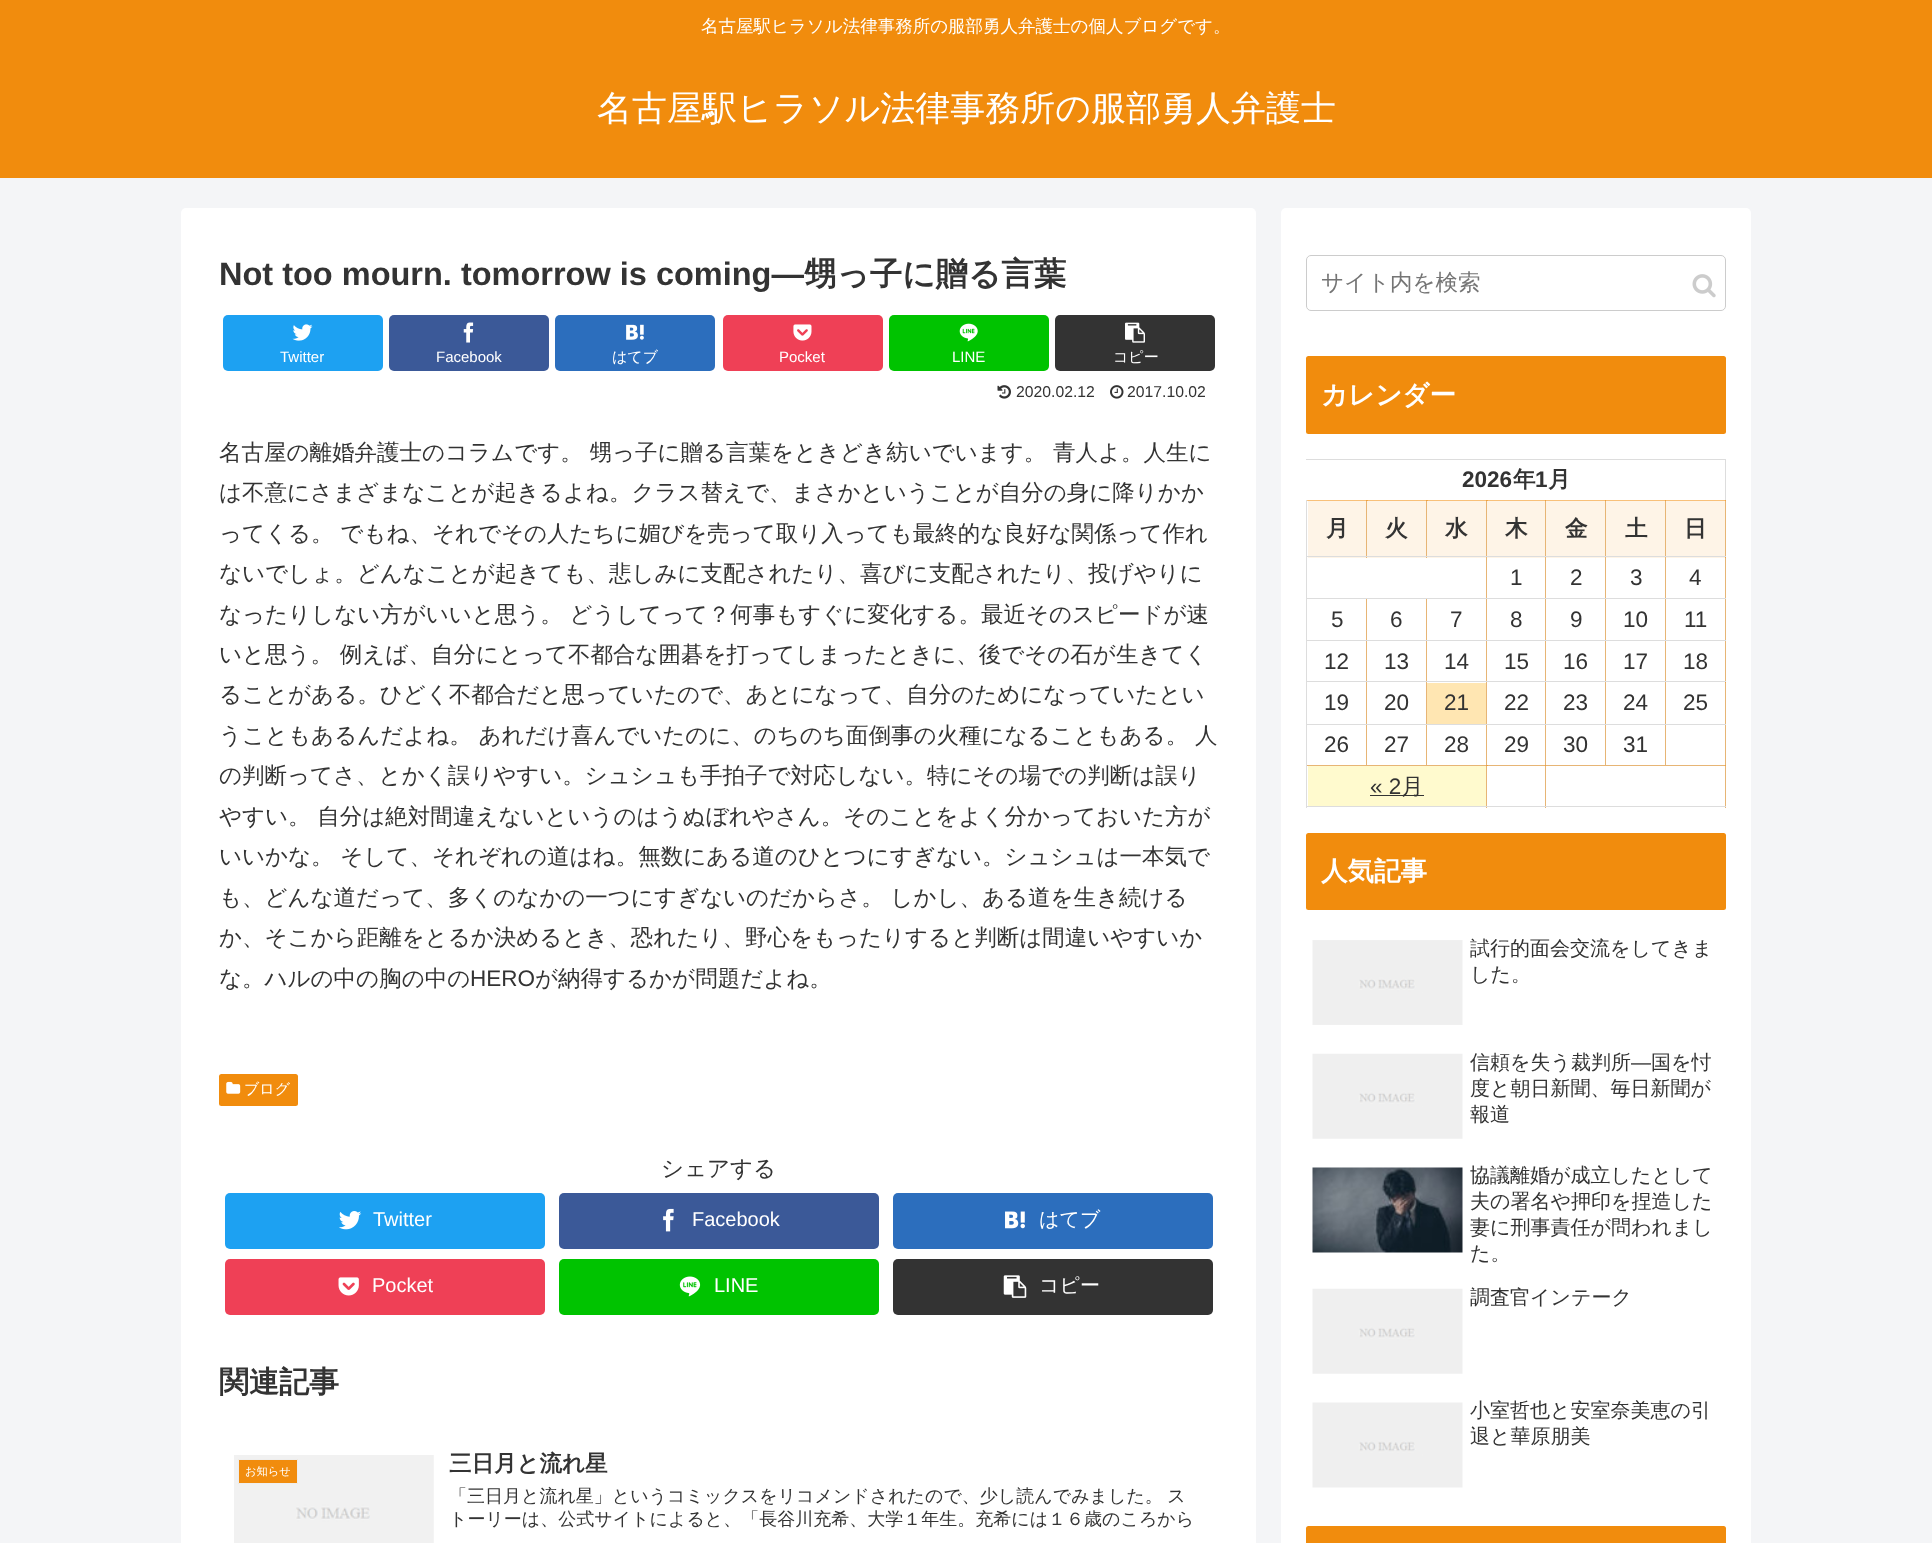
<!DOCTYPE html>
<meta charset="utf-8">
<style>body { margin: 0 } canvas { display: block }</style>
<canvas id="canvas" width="1932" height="1543"></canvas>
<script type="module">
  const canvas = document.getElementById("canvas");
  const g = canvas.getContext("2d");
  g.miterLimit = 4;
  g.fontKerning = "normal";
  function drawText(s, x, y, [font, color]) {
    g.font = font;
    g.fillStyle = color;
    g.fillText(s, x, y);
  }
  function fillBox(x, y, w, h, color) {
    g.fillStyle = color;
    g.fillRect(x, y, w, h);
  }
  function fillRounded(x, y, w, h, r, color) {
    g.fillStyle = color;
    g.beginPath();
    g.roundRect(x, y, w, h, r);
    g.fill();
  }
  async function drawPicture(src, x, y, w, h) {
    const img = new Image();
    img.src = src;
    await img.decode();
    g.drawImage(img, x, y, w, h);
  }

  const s1 = ["500 17.5px WenQuanYi Zen Hei", "#FFFFFF"];
  const s2 = ["500 35px WenQuanYi Zen Hei", "#FFFFFF"];
  const s3 = ["bold 32.5px Liberation Sans", "#333333"];
  const s4 = ["bold 32.5px WenQuanYi Zen Hei", "#333333"];
  const s5 = ["15px Liberation Sans", "#FFFFFF"];
  const s6 = ["500 15px WenQuanYi Zen Hei", "#FFFFFF"];
  const s7 = ["15.75px Liberation Sans", "#333333"];
  const s8 = ["500 22.5px WenQuanYi Zen Hei", "#333333"];
  const s9 = ["22.5px Liberation Sans", "#333333"];
  const s10 = ["20px Liberation Sans", "#FFFFFF"];
  const s11 = ["500 20px WenQuanYi Zen Hei", "#FFFFFF"];
  const s12 = ["bold 30px WenQuanYi Zen Hei", "#333333"];
  const s13 = ["500 11.25px WenQuanYi Zen Hei", "#FFFFFF"];
  const s14 = ["bold 22.5px WenQuanYi Zen Hei", "#333333"];
  const s15 = ["500 18px WenQuanYi Zen Hei", "#333333"];
  const s16 = ["500 22.5px WenQuanYi Zen Hei", "#757575"];
  const s17 = ["bold 26.5px WenQuanYi Zen Hei", "#FFFFFF"];
  const s18 = ["bold 22.5px Liberation Sans", "#333333"];
  const s19 = ["500 20px WenQuanYi Zen Hei", "#333333"];
  const s20 = ["20px Liberation Sans", "#333333"];

  fillBox(0, 0, 1932, 1543, "#F4F5F7");
  fillBox(0, 0, 1932, 178, "#F18C0D");
  drawText("名古屋駅ヒラソル法律事務所の服部勇人弁護士の個人ブログです。", 701, 32, s1);
  drawText("名古屋駅ヒラソル法律事務所の服部勇人弁護士", 597, 120, s2);
  fillRounded(181, 208, 1075, 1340, 5, "#FFFFFF");
  drawText("Not too mourn. tomorrow is coming―", 219, 285, s3);
  drawText("甥っ子に贈る言葉", 804, 285, s4);
  fillRounded(223, 315, 160, 56, 5, "#1DA1F2");
  await drawPicture("pic1.png", 292, 324, 21, 17);
  drawText("Twitter", 280, 362, s5);
  fillRounded(389, 315, 160, 56, 5, "#3B5998");
  await drawPicture("pic2.png", 463, 322, 11, 21);
  drawText("Facebook", 436, 362, s5);
  fillRounded(555, 315, 160, 56, 5, "#2C6EBD");
  await drawPicture("pic3.png", 626, 324, 18, 16);
  drawText("はてブ", 612, 362, s6);
  fillRounded(723, 315, 160, 56, 5, "#EF4056");
  await drawPicture("pic4.png", 793, 324, 19, 17);
  drawText("Pocket", 779, 362, s5);
  fillRounded(889, 315, 160, 56, 5, "#00C300");
  await drawPicture("pic5.png", 959, 323, 19, 19);
  drawText("LINE", 952, 362, s5);
  fillRounded(1055, 315, 160, 56, 5, "#333333");
  await drawPicture("pic6.png", 1125, 322, 20, 21);
  drawText("コピー", 1113, 362, s6);
  await drawPicture("pic7.png", 997, 385, 14, 14);
  drawText("2020.02.12", 1016, 397, s7);
  await drawPicture("pic8.png", 1110, 385, 14, 14);
  drawText("2017.10.02", 1127, 397, s7);
  drawText("名古屋の離婚弁護士のコラムです。 甥っ子に贈る言葉をときどき紡いでいます。 青人よ。人生に", 219, 460, s8);
  drawText("は不意にさまざまなことが起きるよね。クラス替えで、まさかということが自分の身に降りかか", 219, 500, s8);
  drawText("ってくる。 でもね、それでその人たちに媚びを売って取り入っても最終的な良好な関係って作れ", 219, 541, s8);
  drawText("ないでしょ。どんなことが起きても、悲しみに支配されたり、喜びに支配されたり、投げやりに", 219, 581, s8);
  drawText("なったりしない方がいいと思う。 どうしてって？何事もすぐに変化する。最近そのスピードが速", 219, 622, s8);
  drawText("いと思う。 例えば、自分にとって不都合な囲碁を打ってしまったときに、後でその石が生きてく", 219, 662, s8);
  drawText("ることがある。ひどく不都合だと思っていたので、あとになって、自分のためになっていたとい", 219, 702, s8);
  drawText("うこともあるんだよね。 あれだけ喜んでいたのに、のちのち面倒事の火種になることもある。 人", 219, 743, s8);
  drawText("の判断ってさ、とかく誤りやすい。シュシュも手拍子で対応しない。特にその場での判断は誤り", 219, 783, s8);
  drawText("やすい。 自分は絶対間違えないというのはうぬぼれやさん。そのことをよく分かっておいた方が", 219, 824, s8);
  drawText("いいかな。 そして、それぞれの道はね。無数にある道のひとつにすぎない。シュシュは一本気で", 219, 864, s8);
  drawText("も、どんな道だって、多くのなかの一つにすぎないのだからさ。 しかし、ある道を生き続ける", 219, 905, s8);
  drawText("か、そこから距離をとるか決めるとき、恐れたり、野心をもったりすると判断は間違いやすいか", 219, 945, s8);
  drawText("な。ハルの中の胸の中の", 219, 986, s8);
  drawText("HERO", 470, 986, s9);
  drawText("が納得するかが問題だよね。", 535, 986, s8);
  fillRounded(219, 1074, 79, 32, 2.5, "#F18C0D");
  await drawPicture("pic9.png", 226, 1081, 15, 13);
  drawText("ブログ", 244, 1094, s6);
  drawText("シェアする", 661, 1176, s8);
  fillRounded(225, 1193, 320, 56, 5, "#1DA1F2");
  await drawPicture("pic10.png", 339, 1211, 23, 19);
  drawText("Twitter", 373, 1226, s10);
  fillRounded(559, 1193, 320, 56, 5, "#3B5998");
  await drawPicture("pic11.png", 663, 1208, 11, 24);
  drawText("Facebook", 692, 1226, s10);
  fillRounded(893, 1193, 320, 56, 5, "#2C6EBD");
  await drawPicture("pic12.png", 1005, 1211, 20, 18);
  drawText("はてブ", 1039, 1226, s11);
  fillRounded(225, 1259, 320, 56, 5, "#EF4056");
  await drawPicture("pic13.png", 338, 1277, 21, 19);
  drawText("Pocket", 372, 1292, s10);
  fillRounded(559, 1259, 320, 56, 5, "#00C300");
  await drawPicture("pic14.png", 679, 1276, 22, 21);
  drawText("LINE", 714, 1292, s10);
  fillRounded(893, 1259, 320, 56, 5, "#333333");
  await drawPicture("pic15.png", 1003, 1275, 24, 23);
  drawText("コピー", 1039, 1292, s11);
  drawText("関連記事", 219, 1392, s12);
  await drawPicture("pic16.png", 234, 1455, 200, 88);
  g.fillStyle = "#F18C0D";
  g.beginPath();
  g.rect(238.5, 1459.5, 59, 24);
  g.fill();
  g.strokeStyle = "#EEEEEE";
  g.stroke();
  drawText("お知らせ", 245, 1475, s13);
  drawText("三日月と流れ星", 449, 1471, s14);
  g.wordSpacing = "-1px";
  drawText("「三日月と流れ星」というコミックスをリコメンドされたので、少し読んでみました。 ス", 449, 1502, s15);
  g.wordSpacing = "0px";
  drawText("トーリーは、公式サイトによると、「長谷川充希、大学１年生。充希には１６歳のころから", 449, 1525, s15);
  fillRounded(1281, 208, 470, 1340, 5, "#FFFFFF");
  fillBox(1306, 500, 2, 1, "#F8C686");
  g.beginPath();
  g.roundRect(1306.5, 255.5, 419, 55, 4.5);
  g.strokeStyle = "#CCCCCC";
  g.stroke();
  drawText("サイト内を検索", 1321, 290, s16);
  await drawPicture("pic17.png", 1692, 274, 24, 24);
  fillRounded(1306, 356, 420, 78, 2.5, "#F18C0D");
  drawText("カレンダー", 1321, 404, s17);
  fillBox(1306, 459, 420, 1, "#DDDDDD");
  fillBox(1725, 459, 1, 41, "#DDDDDD");
  fillBox(1308, 500, 418, 1, "#F8C07A");
  fillBox(1725, 500, 1, 225, "#E7B575");
  fillBox(1725, 500, 1, 1, "#ECA141");
  fillBox(1725, 724, 1, 84, "#E7B575");
  fillBox(1725, 556, 1, 2, "#ECA141");
  fillBox(1725, 681, 1, 2, "#ECA141");
  drawText("2026", 1462, 487, s18);
  drawText("年", 1513, 487, s14);
  drawText("1", 1535, 487, s18);
  drawText("月", 1548, 487, s14);
  fillBox(1308, 501, 58, 57, "#FEF4E7");
  fillBox(1367, 501, 59, 57, "#FEF4E7");
  fillBox(1427, 501, 59, 57, "#FEF4E7");
  fillBox(1487, 501, 58, 57, "#FEF4E7");
  fillBox(1546, 501, 59, 57, "#FEF4E7");
  fillBox(1606, 501, 59, 57, "#FEF4E7");
  fillBox(1666, 501, 59, 57, "#FEF4E7");
  fillBox(1665, 724, 1, 42, "#E7B575");
  fillBox(1665, 724, 61, 1, "#DDDDDD");
  fillBox(1665, 681, 1, 44, "#E7B575");
  fillBox(1665, 681, 61, 1, "#DDDDDD");
  fillBox(1665, 640, 1, 43, "#E7B575");
  fillBox(1665, 640, 61, 1, "#DDDDDD");
  fillBox(1665, 598, 1, 43, "#E7B575");
  fillBox(1665, 598, 61, 1, "#DDDDDD");
  fillBox(1665, 556, 1, 43, "#E7B575");
  fillBox(1665, 556, 61, 1, "#DDDDDD");
  fillBox(1665, 500, 1, 58, "#E7B575");
  fillBox(1605, 724, 1, 42, "#E7B575");
  fillBox(1605, 724, 61, 1, "#DDDDDD");
  fillBox(1605, 681, 1, 44, "#E7B575");
  fillBox(1605, 681, 61, 1, "#DDDDDD");
  fillBox(1605, 640, 1, 43, "#E7B575");
  fillBox(1605, 640, 61, 1, "#DDDDDD");
  fillBox(1605, 598, 1, 43, "#E7B575");
  fillBox(1605, 598, 61, 1, "#DDDDDD");
  fillBox(1605, 556, 1, 43, "#E7B575");
  fillBox(1605, 556, 61, 1, "#DDDDDD");
  fillBox(1605, 500, 1, 58, "#E7B575");
  fillBox(1545, 724, 1, 42, "#E7B575");
  fillBox(1545, 724, 61, 1, "#DDDDDD");
  fillBox(1545, 681, 1, 44, "#E7B575");
  fillBox(1545, 681, 61, 1, "#DDDDDD");
  fillBox(1545, 640, 1, 43, "#E7B575");
  fillBox(1545, 640, 61, 1, "#DDDDDD");
  fillBox(1545, 598, 1, 43, "#E7B575");
  fillBox(1545, 598, 61, 1, "#DDDDDD");
  fillBox(1545, 556, 1, 43, "#E7B575");
  fillBox(1545, 556, 61, 1, "#DDDDDD");
  fillBox(1545, 500, 1, 58, "#E7B575");
  fillBox(1486, 724, 1, 42, "#E7B575");
  fillBox(1486, 724, 60, 1, "#DDDDDD");
  fillBox(1486, 681, 1, 44, "#E7B575");
  fillBox(1486, 681, 60, 1, "#DDDDDD");
  fillBox(1486, 640, 1, 43, "#E7B575");
  fillBox(1486, 640, 60, 1, "#DDDDDD");
  fillBox(1486, 598, 1, 43, "#E7B575");
  fillBox(1486, 598, 60, 1, "#DDDDDD");
  fillBox(1486, 556, 1, 43, "#E7B575");
  fillBox(1486, 556, 60, 1, "#DDDDDD");
  fillBox(1486, 500, 2, 1, "#F5A644");
  fillBox(1486, 500, 1, 58, "#E7B575");
  fillBox(1426, 556, 62, 1, "#DDDDDD");
  fillBox(1426, 500, 2, 1, "#F5A644");
  fillBox(1426, 500, 1, 58, "#E7B575");
  fillBox(1366, 556, 62, 1, "#DDDDDD");
  fillBox(1366, 500, 2, 1, "#F5A644");
  fillBox(1366, 500, 1, 58, "#E7B575");
  fillBox(1426, 765, 62, 1, "#E7B575");
  fillBox(1426, 724, 1, 42, "#E7B575");
  fillBox(1426, 724, 62, 1, "#DDDDDD");
  fillBox(1426, 681, 1, 44, "#E7B575");
  fillBox(1426, 681, 62, 1, "#DDDDDD");
  fillBox(1426, 640, 1, 43, "#E7B575");
  fillBox(1426, 640, 62, 1, "#DDDDDD");
  fillBox(1426, 598, 1, 43, "#E7B575");
  fillBox(1366, 765, 62, 1, "#E7B575");
  fillBox(1366, 724, 1, 42, "#E7B575");
  fillBox(1366, 724, 62, 1, "#DDDDDD");
  fillBox(1366, 681, 1, 44, "#E7B575");
  fillBox(1366, 681, 62, 1, "#DDDDDD");
  fillBox(1366, 640, 1, 43, "#E7B575");
  fillBox(1366, 640, 62, 1, "#DDDDDD");
  fillBox(1366, 598, 1, 43, "#E7B575");
  fillBox(1306, 765, 62, 1, "#E7B575");
  fillBox(1306, 724, 1, 42, "#DDDDDD");
  fillBox(1306, 724, 62, 1, "#DDDDDD");
  fillBox(1306, 681, 1, 44, "#DDDDDD");
  fillBox(1306, 681, 62, 1, "#DDDDDD");
  fillBox(1306, 640, 1, 43, "#DDDDDD");
  fillBox(1306, 640, 62, 1, "#DDDDDD");
  fillBox(1306, 598, 1, 43, "#DDDDDD");
  fillBox(1306, 598, 182, 1, "#DDDDDD");
  fillBox(1306, 556, 1, 43, "#DDDDDD");
  fillBox(1306, 556, 62, 1, "#DDDDDD");
  fillBox(1306, 500, 1, 58, "#DDDDDD");
  drawText("月", 1326, 536, s14);
  fillBox(1366, 500, 1, 1, "#ECA141");
  drawText("火", 1385, 536, s14);
  fillBox(1426, 500, 1, 1, "#ECA141");
  drawText("水", 1445, 536, s14);
  fillBox(1486, 500, 1, 1, "#ECA141");
  drawText("木", 1505, 536, s14);
  fillBox(1545, 500, 1, 1, "#ECA141");
  drawText("金", 1565, 536, s14);
  fillBox(1605, 500, 1, 1, "#ECA141");
  drawText("土", 1625, 536, s14);
  fillBox(1665, 500, 1, 1, "#ECA141");
  drawText("日", 1684, 536, s14);
  drawText("1", 1510, 585, s9);
  drawText("2", 1570, 585, s9);
  drawText("3", 1630, 585, s9);
  drawText("4", 1689, 585, s9);
  drawText("5", 1331, 627, s9);
  drawText("6", 1390, 627, s9);
  drawText("7", 1450, 627, s9);
  drawText("8", 1510, 627, s9);
  drawText("9", 1570, 627, s9);
  drawText("10", 1623, 627, s9);
  drawText("11", 1684, 627, s9);
  drawText("12", 1324, 669, s9);
  drawText("13", 1384, 669, s9);
  drawText("14", 1444, 669, s9);
  drawText("15", 1504, 669, s9);
  drawText("16", 1563, 669, s9);
  drawText("17", 1623, 669, s9);
  drawText("18", 1683, 669, s9);
  drawText("19", 1324, 710, s9);
  drawText("20", 1384, 710, s9);
  fillBox(1427, 683, 59, 41, "#FFE6B2");
  drawText("21", 1444, 710, s9);
  drawText("22", 1504, 710, s9);
  drawText("23", 1563, 710, s9);
  drawText("24", 1623, 710, s9);
  drawText("25", 1683, 710, s9);
  drawText("26", 1324, 752, s9);
  drawText("27", 1384, 752, s9);
  drawText("28", 1444, 752, s9);
  drawText("29", 1504, 752, s9);
  drawText("30", 1563, 752, s9);
  drawText("31", 1623, 752, s9);
  fillBox(1545, 806, 181, 1, "#DDDDDD");
  fillBox(1545, 765, 181, 1, "#E7B575");
  fillBox(1545, 765, 1, 43, "#E7B575");
  fillBox(1486, 806, 60, 1, "#DDDDDD");
  fillBox(1486, 765, 60, 1, "#E7B575");
  fillBox(1486, 765, 2, 1, "#ECA141");
  fillBox(1486, 765, 1, 43, "#E7B575");
  fillBox(1306, 806, 182, 1, "#DDDDDD");
  fillBox(1306, 765, 1, 43, "#DDDDDD");
  fillBox(1308, 766, 178, 40, "#FFFACE");
  drawText("« 2", 1370, 794, s9);
  fillBox(1370, 795, 54, 1, "#333333");
  drawText("月", 1401, 794, s8);
  fillBox(1545, 765, 1, 1, "#ECA141");
  fillBox(1486, 765, 1, 1, "#ECA141");
  fillBox(1725, 765, 1, 1, "#ECA141");
  fillRounded(1306, 833, 420, 77, 2.5, "#F18C0D");
  drawText("人気記事", 1321, 880, s17);
  await drawPicture("pic18.png", 1312, 940, 151, 85);
  drawText("試行的面会交流をしてきま", 1470, 955, s19);
  drawText("した。", 1470, 981, s19);
  await drawPicture("pic19.png", 1312, 1053, 151, 86);
  drawText("信頼を失う裁判所", 1470, 1069, s19);
  drawText("―", 1631, 1069, s20);
  drawText("国を忖", 1651, 1069, s19);
  drawText("度と朝日新聞、毎日新聞が", 1470, 1095, s19);
  drawText("報道", 1470, 1121, s19);
  await drawPicture("pic20.png", 1312, 1167, 151, 86);
  drawText("協議離婚が成立したとして", 1470, 1182, s19);
  drawText("夫の署名や押印を捏造した", 1470, 1208, s19);
  drawText("妻に刑事責任が問われまし", 1470, 1234, s19);
  drawText("た。", 1470, 1260, s19);
  await drawPicture("pic19.png", 1312, 1288, 151, 86);
  drawText("調査官インテーク", 1470, 1304, s19);
  await drawPicture("pic21.png", 1312, 1402, 151, 86);
  drawText("小室哲也と安室奈美恵の引", 1470, 1417, s19);
  drawText("退と華原朋美", 1470, 1443, s19);
  fillRounded(1306, 1526, 420, 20, 2.5, "#F18C0D");
</script>
